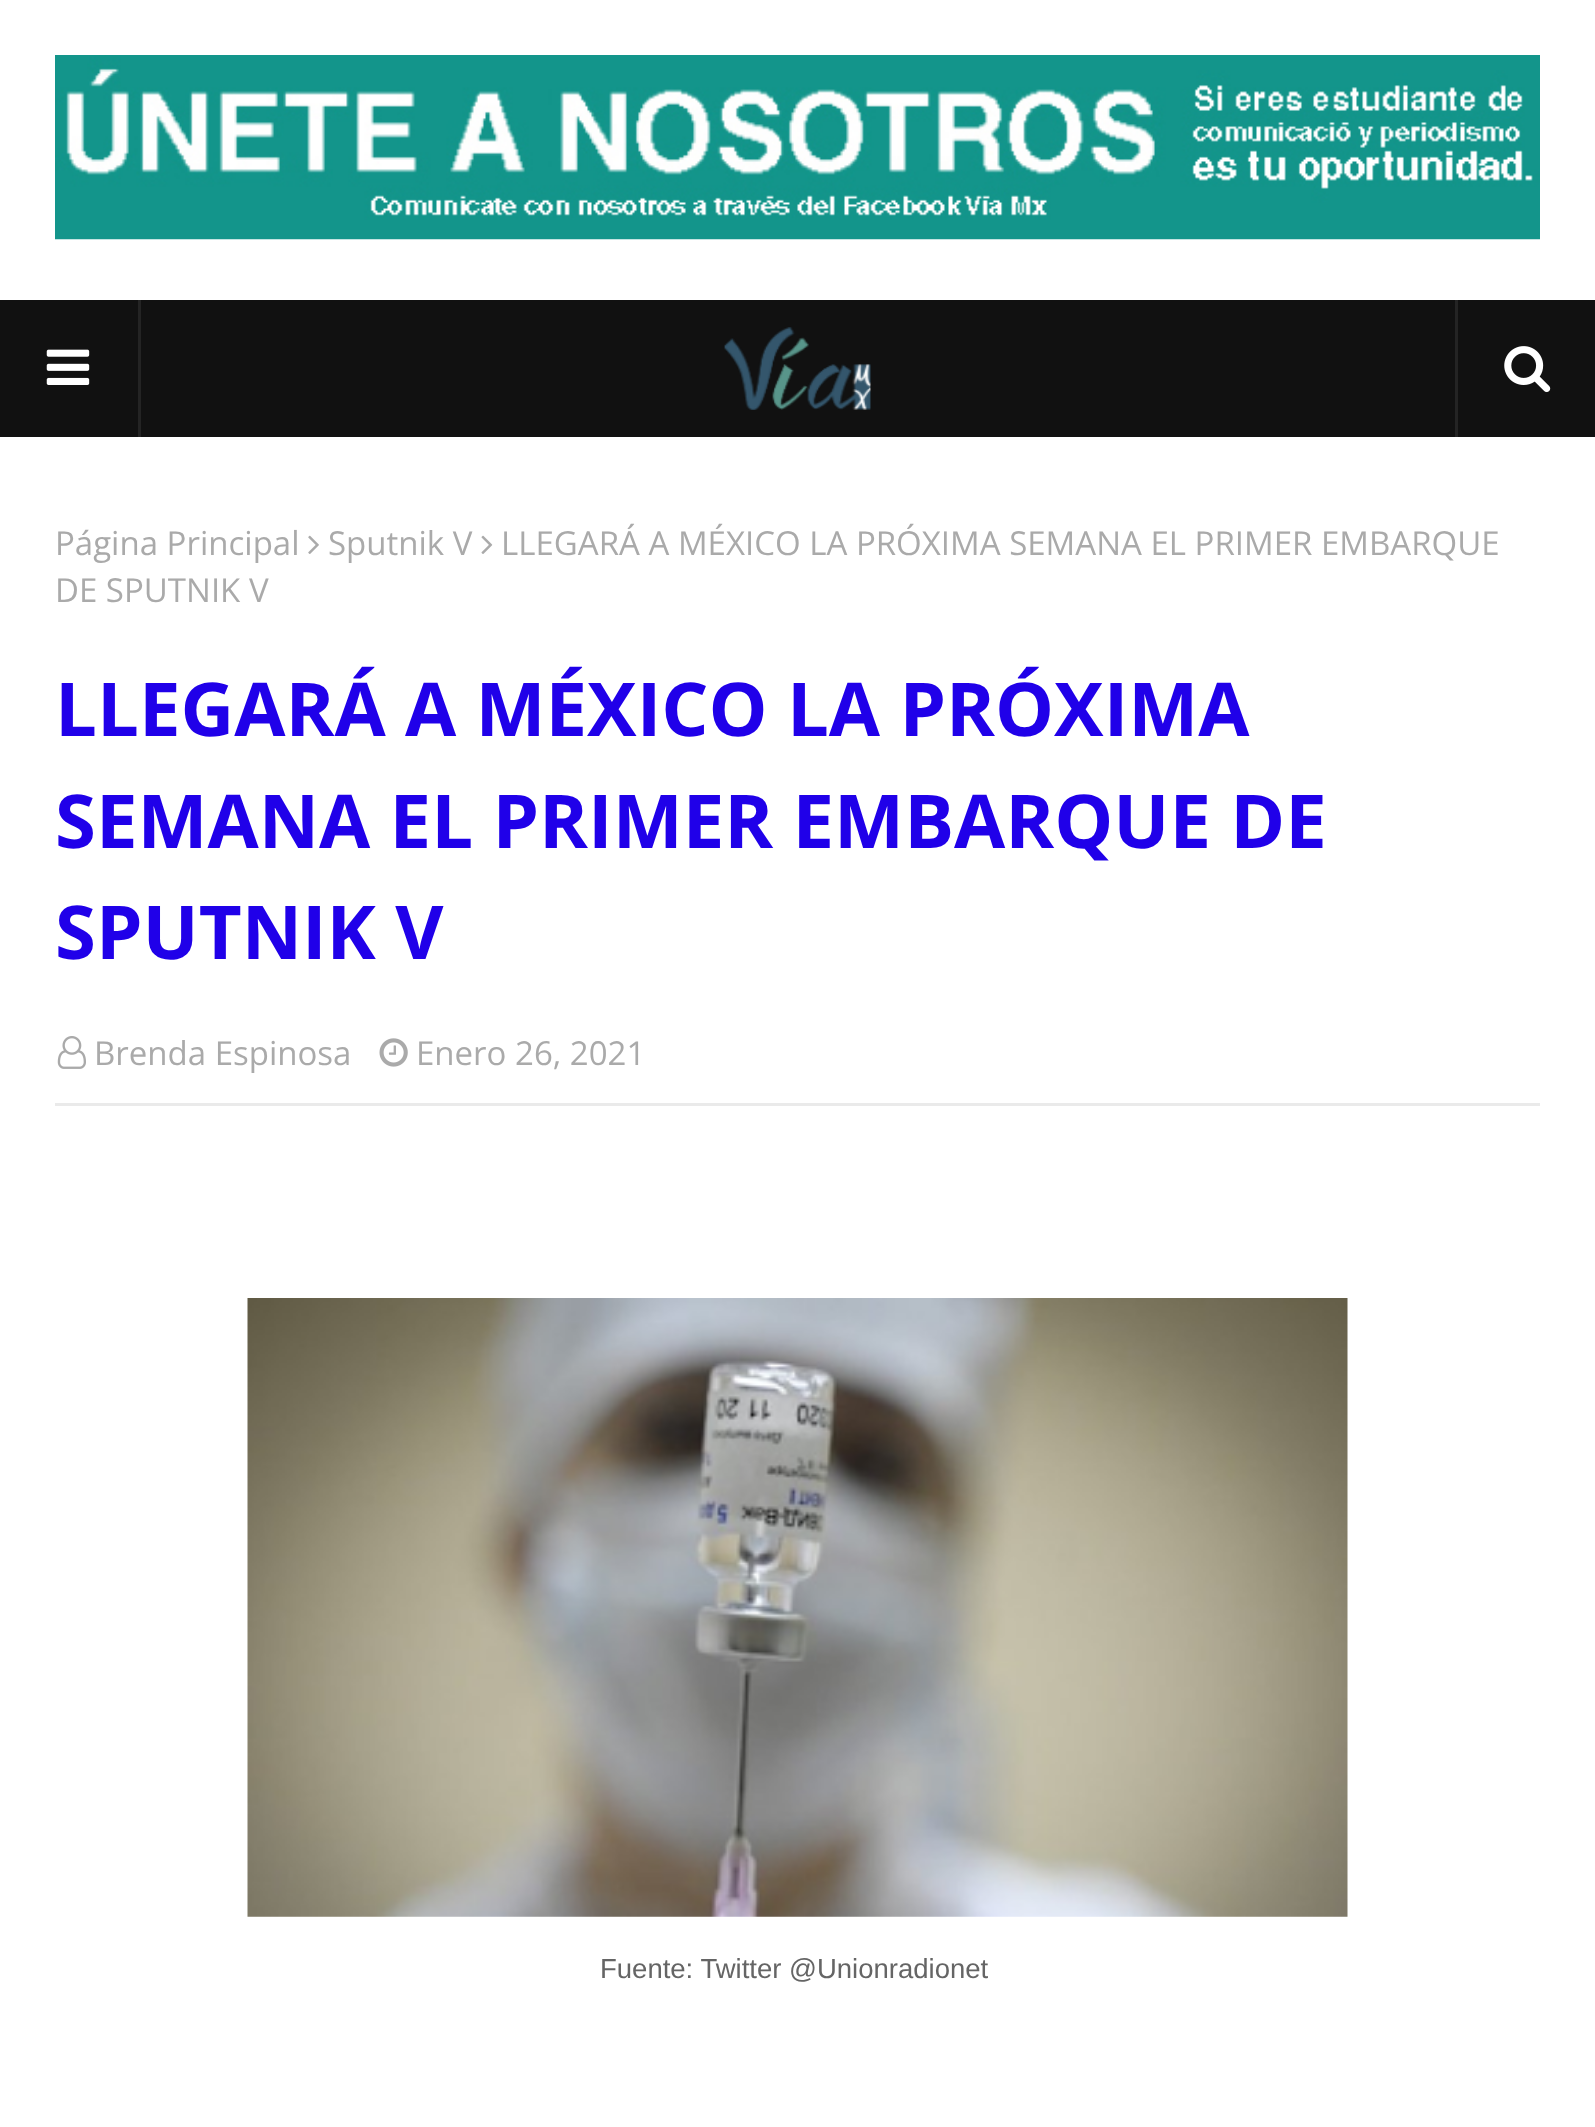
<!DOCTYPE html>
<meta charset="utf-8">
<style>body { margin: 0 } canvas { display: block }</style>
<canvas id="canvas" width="1595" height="2127"></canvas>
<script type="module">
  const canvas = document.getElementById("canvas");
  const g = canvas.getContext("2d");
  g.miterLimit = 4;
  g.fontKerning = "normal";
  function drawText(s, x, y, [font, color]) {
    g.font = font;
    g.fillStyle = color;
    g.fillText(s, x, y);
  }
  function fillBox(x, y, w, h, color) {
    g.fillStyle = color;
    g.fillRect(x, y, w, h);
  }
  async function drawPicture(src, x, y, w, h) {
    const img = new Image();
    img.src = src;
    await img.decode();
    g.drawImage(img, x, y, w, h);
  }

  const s1 = ["33px Open Sans", "#AAAAAA"];
  const s2 = ["bold 74.25px Open Sans", "#2000E9"];
  const s3 = ["27.5px Liberation Sans", "#656565"];

  fillBox(0, 0, 1595, 2127, "#FFFFFF");
  await drawPicture("pic1.png", 55, 55, 1485, 185);
  fillBox(0, 300, 1595, 137, "#111111");
  fillBox(138, 300, 3, 137, "#242424");
  await drawPicture("pic2.png", 46, 349, 44, 36);
  await drawPicture("pic3.png", 724, 327, 147, 83);
  fillBox(1455, 300, 3, 137, "#242424");
  await drawPicture("pic4.png", 1504, 346, 47, 47);
  drawText("Página Principal", 55, 555, s1);
  await drawPicture("pic5.png", 308, 535, 11, 19);
  drawText("Sputnik V", 328, 555, s1);
  await drawPicture("pic6.png", 481, 535, 12, 19);
  drawText("LLEGARÁ A MÉXICO LA PRÓXIMA SEMANA EL PRIMER EMBARQUE", 501, 555, s1);
  drawText("DE SPUTNIK V", 55, 602, s1);
  drawText("LLEGARÁ A MÉXICO LA PRÓXIMA", 55, 736, s2);
  drawText("SEMANA EL PRIMER EMBARQUE DE", 55, 848, s2);
  drawText("SPUTNIK V", 55, 959, s2);
  fillBox(55, 1103, 1485, 3, "#EAEAEA");
  await drawPicture("pic7.png", 57, 1036, 29, 33);
  drawText("Brenda Espinosa", 94, 1065, s1);
  await drawPicture("pic8.png", 379, 1038, 29, 29);
  drawText("Enero 26, 2021", 416, 1065, s1);
  await drawPicture("pic9.png", 247, 1298, 1101, 619);
  drawText("Fuente: Twitter @Unionradionet", 600, 1978, s3);
</script>
